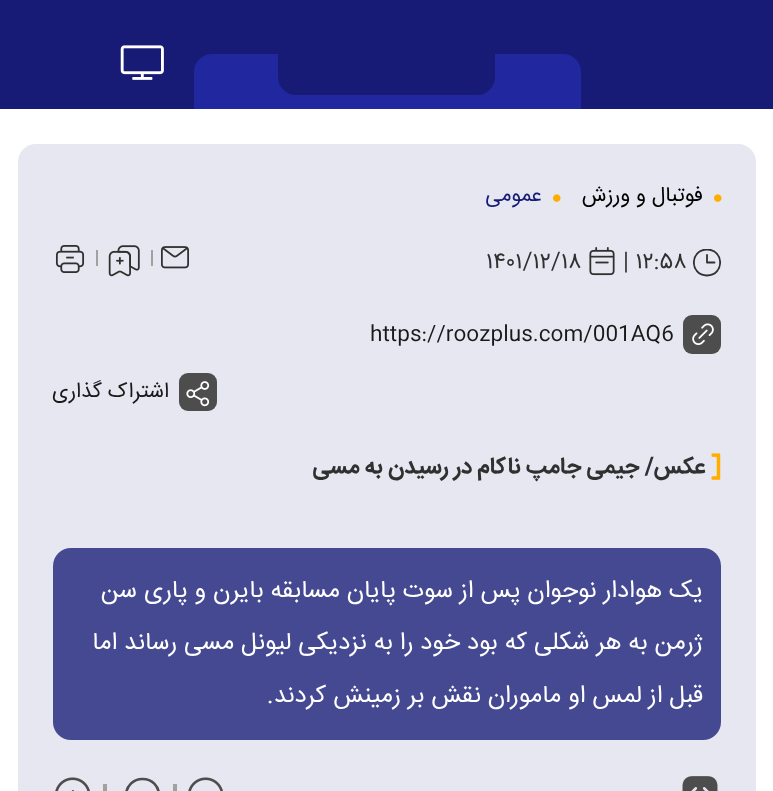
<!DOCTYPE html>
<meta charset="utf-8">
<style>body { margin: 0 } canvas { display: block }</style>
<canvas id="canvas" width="773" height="791"></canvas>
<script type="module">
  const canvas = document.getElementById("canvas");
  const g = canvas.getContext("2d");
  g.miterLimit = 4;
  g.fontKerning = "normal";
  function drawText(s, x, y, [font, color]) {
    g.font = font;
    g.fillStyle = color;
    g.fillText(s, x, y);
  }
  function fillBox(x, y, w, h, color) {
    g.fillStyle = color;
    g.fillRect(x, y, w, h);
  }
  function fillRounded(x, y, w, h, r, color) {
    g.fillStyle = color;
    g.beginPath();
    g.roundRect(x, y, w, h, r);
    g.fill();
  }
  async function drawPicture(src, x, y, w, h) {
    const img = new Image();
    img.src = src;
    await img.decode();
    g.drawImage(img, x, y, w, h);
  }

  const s1 = ["21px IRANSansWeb", "#000000"];
  const s2 = ["21px IRANSansWeb", "#171B75"];
  const s3 = ["22.75px IRANSansWeb", "#303030"];
  const s4 = ["21px IRANSansWeb", "#191919"];
  const s5 = ["bold 22.75px IRANSansWeb", "#303030"];
  const s6 = ["24.5px IRANSansWeb", "#FFFFFF"];

  fillBox(0, 0, 773, 791, "#FFFFFF");
  fillBox(0, 0, 773, 109, "#171B75");
  g.fillStyle = "#21279F";
  g.beginPath();
  g.roundRect(194, 54, 387, 55, [18, 18, 0, 0]);
  g.fill();
  g.fillStyle = "#171B75";
  g.beginPath();
  g.roundRect(278, 11, 217, 84, [0, 0, 18, 18]);
  g.fill();
  await drawPicture("pic1.png", 120, 45, 44, 35);
  fillRounded(18, 144, 738, 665, 18, "#E7E7F1");
  await drawPicture("pic2.png", 714, 194, 8, 8);
  g.direction = "rtl";
  drawText("فوتبال و ورزش", 703, 201, s1);
  await drawPicture("pic2.png", 553, 194, 8, 8);
  drawText("عمومی", 542, 201, s2);
  g.save();
  g.beginPath();
  g.rect(693, 249, 28, 28);
  g.clip();
  g.beginPath();
  g.moveTo(707, 255);
  g.lineTo(707, 262.5);
  g.lineTo(714.5, 262.5);
  g.moveTo(707, 275.5);
  g.bezierCurveTo(689.5, 275.5, 689.5, 249.5, 707, 249.5);
  g.bezierCurveTo(724.5, 249.5, 724.5, 275.5, 707, 275.5);
  g.closePath();
  g.strokeStyle = "#303030";
  g.lineWidth = 1.8;
  g.lineCap = "round";
  g.lineJoin = "round";
  g.stroke();
  g.restore();
  g.direction = "ltr";
  drawText("| ۱۲:۵۸", 623, 268, s3);
  await drawPicture("pic3.png", 589, 247, 26, 29);
  drawText("۱۴۰۱/۱۲/۱۸", 486, 268, s3);
  await drawPicture("pic4.png", 161, 246, 28, 23);
  fillBox(151, 250, 2, 16, "#A1A1A1");
  await drawPicture("pic5.png", 108, 245, 32, 32);
  fillBox(96, 250, 2, 16, "#A1A1A1");
  await drawPicture("pic6.png", 55, 245, 30, 28);
  fillRounded(683, 315, 38, 39, 9, "#4D4D4D");
  await drawPicture("pic7.png", 692, 323, 22, 22);
  drawText("https://roozplus.com/001AQ6", 370, 340, s4);
  fillRounded(179, 373, 38, 38, 9, "#4D4D4D");
  await drawPicture("pic8.png", 186, 381, 24, 26);
  g.direction = "rtl";
  drawText("اشتراک گذاری", 169, 397, s4);
  await drawPicture("pic9.png", 711, 453, 10, 27);
  drawText("عکس/ جیمی جامپ ناکام در رسیدن به مسی", 705, 473, s5);
  fillRounded(53, 548, 668, 192, 18, "#454991");
  drawText("یک هوادار نوجوان پس از سوت پایان مسابقه بایرن و پاری سن", 703, 597, s6);
  drawText("ژرمن به هر شکلی که بود خود را به نزدیکی لیونل مسی رساند اما", 703, 649, s6);
  drawText("قبل از لمس او ماموران نقش بر زمینش کردند.", 703, 702, s6);
  await drawPicture("pic10.png", 682, 776, 36, 15);
  await drawPicture("pic11.png", 188, 777, 35, 14);
  fillBox(173, 784, 4, 7, "#A1A1A1");
  g.beginPath();
  g.moveTo(142.5, 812);
  g.bezierCurveTo(152, 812, 159, 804.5, 159, 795.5);
  g.bezierCurveTo(159, 786, 152, 779, 142.5, 779);
  g.bezierCurveTo(133.5, 779, 126, 786, 126, 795.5);
  g.bezierCurveTo(126, 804.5, 133.5, 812, 142.5, 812);
  g.closePath();
  g.strokeStyle = "#4D4D4D";
  g.lineWidth = 2.6;
  g.lineCap = "round";
  g.lineJoin = "round";
  g.stroke();
  fillBox(103, 784, 4, 7, "#A1A1A1");
  await drawPicture("pic12.png", 55, 777, 35, 14);
</script>
